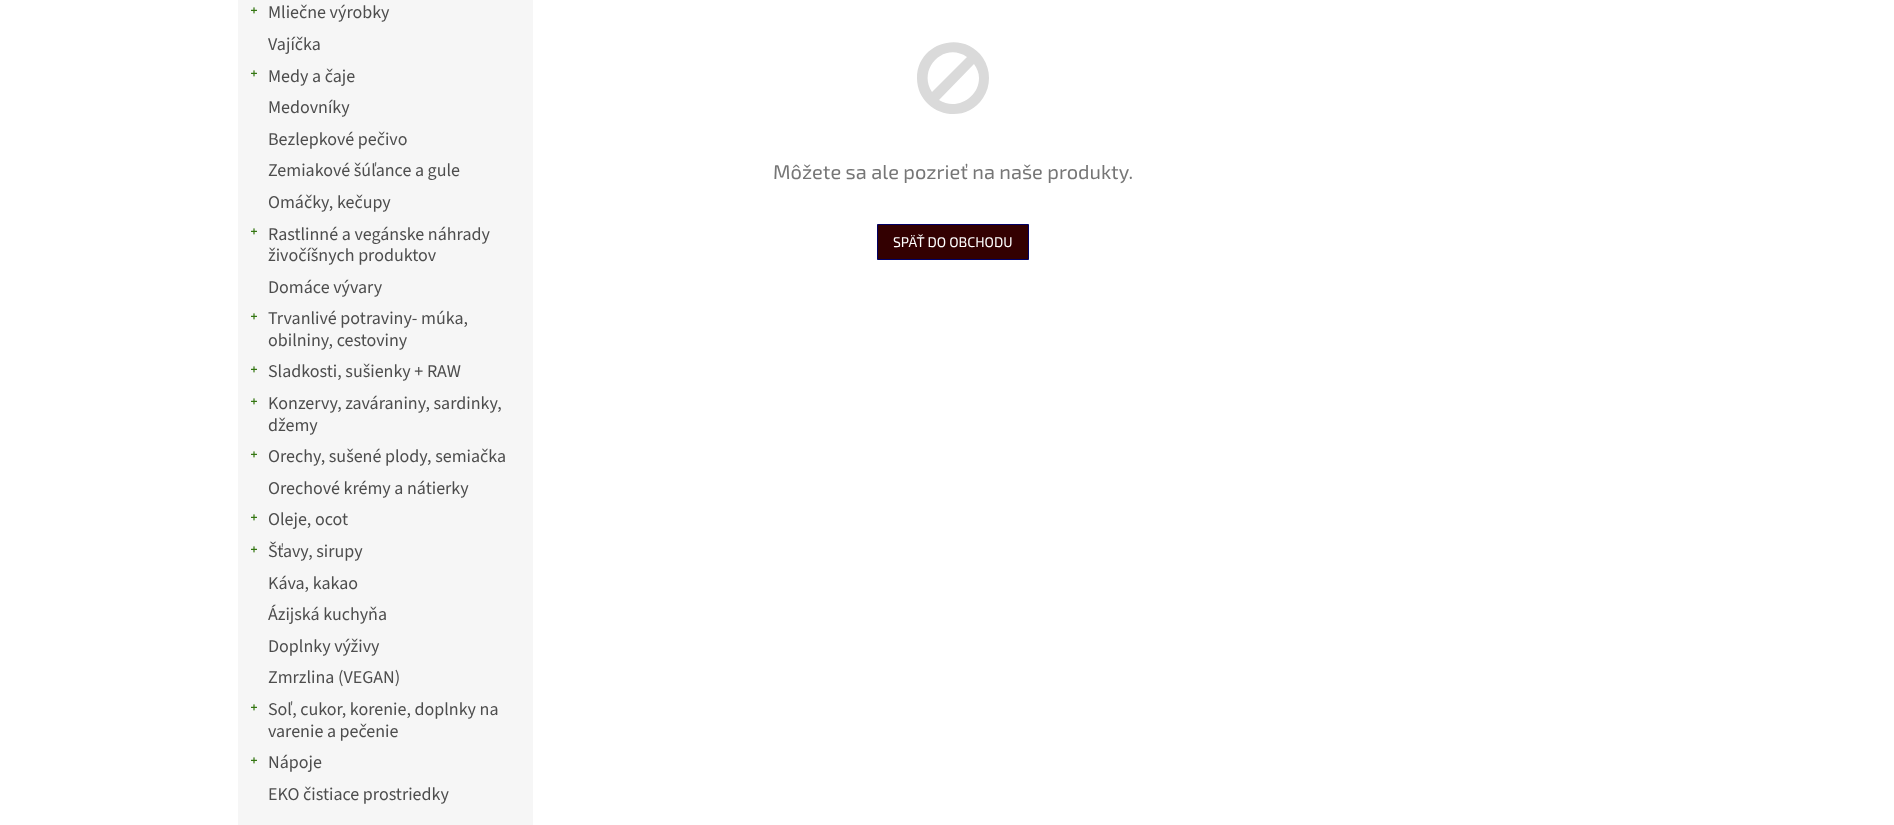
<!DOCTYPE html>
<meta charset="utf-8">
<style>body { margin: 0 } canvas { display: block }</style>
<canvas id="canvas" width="1894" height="825"></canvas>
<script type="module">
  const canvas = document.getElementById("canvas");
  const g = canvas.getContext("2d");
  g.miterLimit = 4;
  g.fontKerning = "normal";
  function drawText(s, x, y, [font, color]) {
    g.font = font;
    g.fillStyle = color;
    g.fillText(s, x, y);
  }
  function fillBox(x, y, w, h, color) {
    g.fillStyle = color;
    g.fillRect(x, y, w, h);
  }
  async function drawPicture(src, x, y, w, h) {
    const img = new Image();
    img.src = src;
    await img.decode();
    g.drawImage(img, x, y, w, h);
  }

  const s1 = ["18px 'Source Sans 3'", "#4D4D4D"];
  const s2 = ["20px 'Exo 2'", "#767676"];
  const s3 = ["14px 'Exo 2'", "#FFFFFF"];

  fillBox(0, 0, 1894, 825, "#FFFFFF");
  fillBox(238, 0, 295, 825, "#F6F6F6");
  await drawPicture("pic1.png", 251, 7, 6, 7);
  drawText("Mliečne výrobky", 268, 18, s1);
  drawText("Vajíčka", 268, 50, s1);
  await drawPicture("pic1.png", 251, 70, 6, 7);
  drawText("Medy a čaje", 268, 82, s1);
  drawText("Medovníky", 268, 113, s1);
  drawText("Bezlepkové pečivo", 268, 145, s1);
  drawText("Zemiakové šúľance a gule", 268, 176, s1);
  drawText("Omáčky, kečupy", 268, 208, s1);
  await drawPicture("pic1.png", 251, 228, 6, 7);
  drawText("Rastlinné a vegánske náhrady", 268, 240, s1);
  drawText("živočíšnych produktov", 268, 261, s1);
  drawText("Domáce vývary", 268, 293, s1);
  await drawPicture("pic1.png", 251, 313, 6, 7);
  drawText("Trvanlivé potraviny- múka,", 268, 324, s1);
  drawText("obilniny, cestoviny", 268, 346, s1);
  await drawPicture("pic1.png", 251, 366, 6, 7);
  drawText("Sladkosti, sušienky + RAW", 268, 377, s1);
  await drawPicture("pic1.png", 251, 398, 6, 7);
  drawText("Konzervy, zaváraniny, sardinky,", 268, 409, s1);
  drawText("džemy", 268, 431, s1);
  await drawPicture("pic1.png", 251, 451, 6, 7);
  drawText("Orechy, sušené plody, semiačka", 268, 462, s1);
  drawText("Orechové krémy a nátierky", 268, 494, s1);
  await drawPicture("pic1.png", 251, 514, 6, 7);
  drawText("Oleje, ocot", 268, 525, s1);
  await drawPicture("pic1.png", 251, 546, 6, 7);
  drawText("Šťavy, sirupy", 268, 557, s1);
  drawText("Káva, kakao", 268, 589, s1);
  drawText("Ázijská kuchyňa", 268, 620, s1);
  drawText("Doplnky výživy", 268, 652, s1);
  drawText("Zmrzlina (VEGAN)", 268, 683, s1);
  await drawPicture("pic1.png", 251, 704, 6, 7);
  drawText("Soľ, cukor, korenie, doplnky na", 268, 715, s1);
  drawText("varenie a pečenie", 268, 737, s1);
  await drawPicture("pic1.png", 251, 757, 6, 7);
  drawText("Nápoje", 268, 768, s1);
  drawText("EKO čistiace prostriedky", 268, 800, s1);
  g.fillStyle = "#DADADA";
  g.beginPath();
  g.moveTo(979, 78);
  g.bezierCurveTo(979, 73, 977, 68, 974, 64);
  g.lineTo(939, 100);
  g.bezierCurveTo(956, 111, 979, 98, 979, 78);
  g.closePath();
  g.moveTo(932, 92);
  g.lineTo(967, 57);
  g.bezierCurveTo(944, 41, 917, 69, 932, 92);
  g.closePath();
  g.moveTo(989, 78);
  g.bezierCurveTo(989, 85, 987, 92, 983, 98);
  g.bezierCurveTo(963, 128, 917, 113, 917, 78);
  g.bezierCurveTo(917, 43, 963, 29, 983, 58);
  g.bezierCurveTo(987, 64, 989, 71, 989, 78);
  g.closePath();
  g.fill();
  drawText("Môžete sa ale pozrieť na naše produkty.", 773, 179, s2);
  g.fillStyle = "#330001";
  g.beginPath();
  g.rect(877.5, 224.5, 151, 35);
  g.fill();
  g.strokeStyle = "#010066";
  g.stroke();
  drawText("SPÄŤ DO OBCHODU", 893, 247, s3);
</script>
